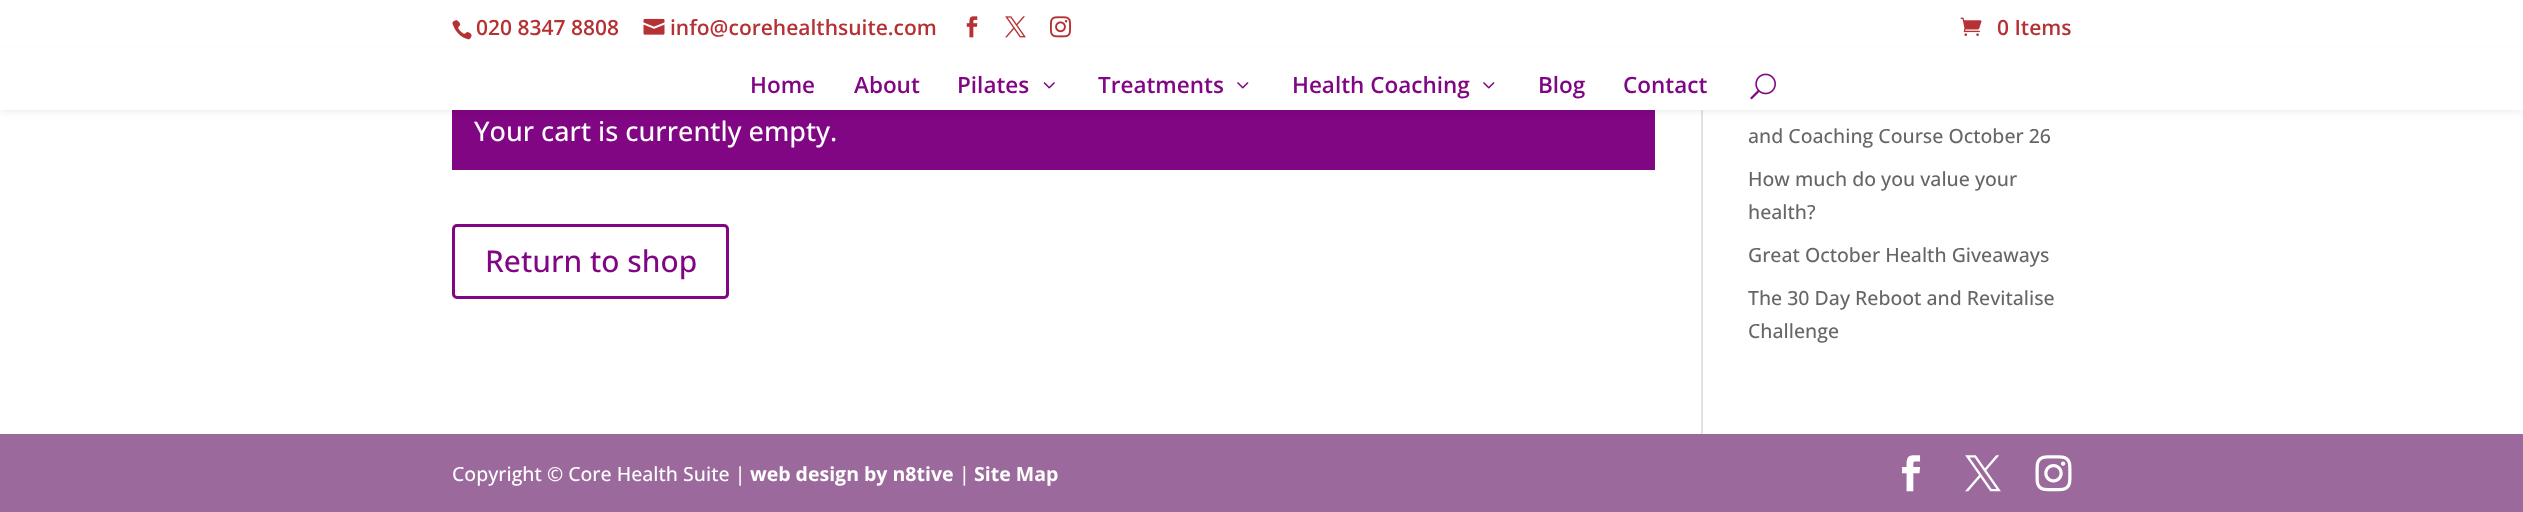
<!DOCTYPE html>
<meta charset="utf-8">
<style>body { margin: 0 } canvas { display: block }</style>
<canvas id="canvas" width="2523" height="512"></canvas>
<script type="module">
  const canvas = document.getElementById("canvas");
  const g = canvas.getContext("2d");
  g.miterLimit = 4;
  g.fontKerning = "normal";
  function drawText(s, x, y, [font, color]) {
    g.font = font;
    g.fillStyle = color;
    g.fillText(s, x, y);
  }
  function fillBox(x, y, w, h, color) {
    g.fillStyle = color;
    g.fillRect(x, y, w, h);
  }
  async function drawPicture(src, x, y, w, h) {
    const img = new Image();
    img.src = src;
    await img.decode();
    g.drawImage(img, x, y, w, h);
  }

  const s1 = ["600 21px Open Sans", "#B63134"];
  const s2 = ["600 22.5px Open Sans", "#800684"];
  const s3 = ["500 27px Open Sans", "#FFFFFF"];
  const s4 = ["500 30px Open Sans", "#800684"];
  const s5 = ["500 19.5px Open Sans", "#666666"];
  const s6 = ["500 19.5px Open Sans", "#FFFFFF"];
  const s7 = ["bold 19.5px Open Sans", "#FFFFFF"];

  fillBox(0, 0, 2523, 512, "#FFFFFF");
  fillBox(1701, 110, 2, 324, "#E2E2E2");
  fillBox(452, 110, 1203, 60, "#800684");
  g.fillStyle = "rgba(0, 0, 0, 0.1)";
  g.filter = "blur(5px)";
  g.beginPath();
  g.rect(0, 54, 2523, 56);
  g.fill();
  g.filter = "none";
  await drawPicture("pic1.png", 452, 20, 20, 20);
  drawText("020 8347 8808", 476, 35, s1);
  await drawPicture("pic2.png", 643, 18, 22, 17);
  drawText("info@corehealthsuite.com", 670, 35, s1);
  await drawPicture("pic3.png", 966, 16, 12, 22);
  await drawPicture("pic4.png", 1005, 16, 21, 22);
  await drawPicture("pic5.png", 1050, 16, 21, 22);
  await drawPicture("pic6.png", 1960, 17, 22, 19);
  drawText("0 Items", 1997, 35, s1);
  fillBox(0, 48, 2523, 62, "#FFFFFF");
  drawText("Home", 750, 93, s2);
  drawText("About", 854, 93, s2);
  drawText("Pilates", 957, 93, s2);
  await drawPicture("pic7.png", 1043, 82, 12, 7);
  drawText("Treatments", 1098, 93, s2);
  await drawPicture("pic8.png", 1237, 82, 12, 7);
  drawText("Health Coaching", 1292, 93, s2);
  await drawPicture("pic8.png", 1483, 82, 12, 7);
  drawText("Blog", 1538, 93, s2);
  drawText("Contact", 1623, 93, s2);
  await drawPicture("pic9.png", 1750, 73, 26, 27);
  drawText("Your cart is currently empty.", 474, 141, s3);
  g.beginPath();
  g.roundRect(453.5, 225.5, 274, 72, 3.5);
  g.strokeStyle = "#800684";
  g.lineWidth = 3;
  g.stroke();
  drawText("Return to shop", 485, 272, s4);
  drawText("and Coaching Course October 26", 1748, 143, s5);
  drawText("How much do you value your", 1748, 186, s5);
  drawText("health?", 1748, 219, s5);
  drawText("Great October Health Giveaways", 1748, 262, s5);
  drawText("The 30 Day Reboot and Revitalise", 1748, 305, s5);
  drawText("Challenge", 1748, 338, s5);
  fillBox(0, 434, 2523, 78, "#9B699B");
  drawText("Copyright © Core Health Suite |", 452, 481, s6);
  drawText("web design by n8tive", 750, 481, s7);
  drawText("|", 959, 481, s6);
  drawText("Site Map", 974, 481, s7);
  await drawPicture("pic10.png", 1902, 455, 19, 37);
  await drawPicture("pic11.png", 1965, 455, 36, 37);
  await drawPicture("pic12.png", 2035, 455, 37, 37);
</script>
